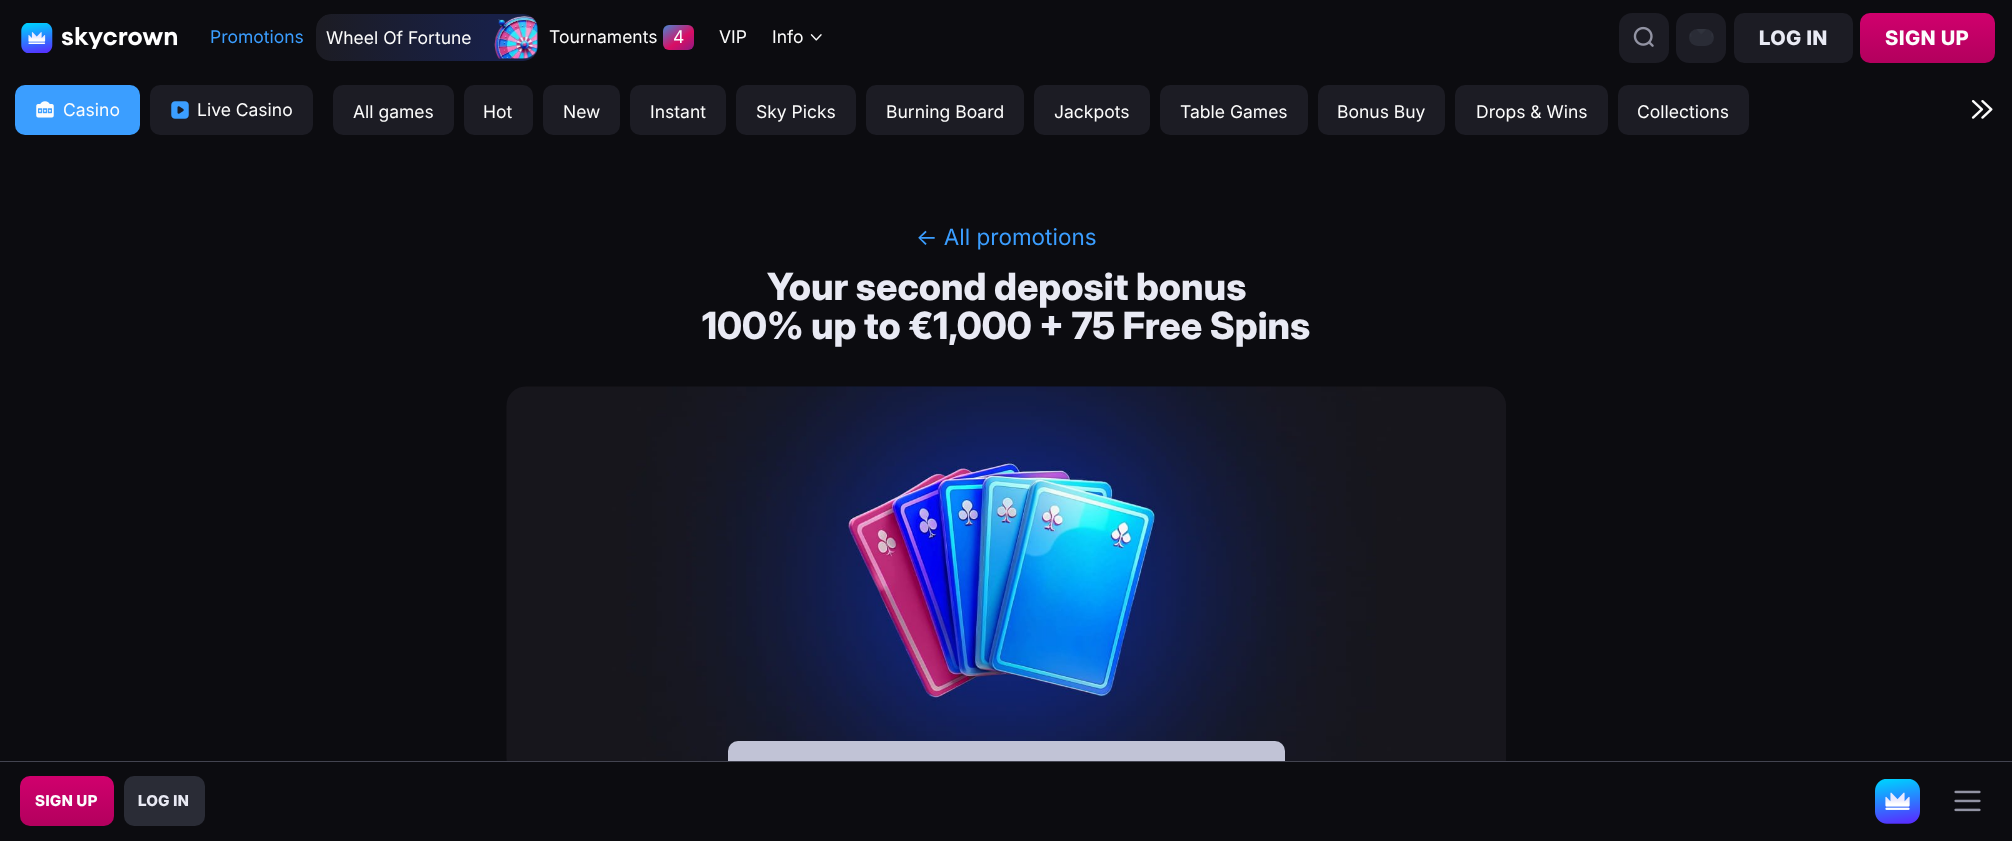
<!DOCTYPE html>
<meta charset="utf-8">
<style>body { margin: 0 } canvas { display: block }</style>
<canvas id="canvas" width="2012" height="841"></canvas>
<script type="module">
  const canvas = document.getElementById("canvas");
  const g = canvas.getContext("2d");
  g.miterLimit = 4;
  g.fontKerning = "normal";
  function drawText(s, x, y, [font, color]) {
    g.font = font;
    g.fillStyle = color;
    g.fillText(s, x, y);
  }
  function fillBox(x, y, w, h, color) {
    g.fillStyle = color;
    g.fillRect(x, y, w, h);
  }
  function fillRounded(x, y, w, h, r, color) {
    g.fillStyle = color;
    g.beginPath();
    g.roundRect(x, y, w, h, r);
    g.fill();
  }
  async function drawPicture(src, x, y, w, h) {
    const img = new Image();
    img.src = src;
    await img.decode();
    g.drawImage(img, x, y, w, h);
  }
  let gradient;

  const s1 = ["17.5px Inter", "#3B9EFF"];
  const s2 = ["17.5px Inter", "#FCFCFC"];
  const s3 = ["800 20px Inter Display", "#E9EAF4"];
  const s4 = ["800 20px Inter Display", "#FCFCFC"];
  const s5 = ["22.5px Inter", "#3B9EFF"];
  const s6 = ["800 37.5px Inter Display", "#E9EAF4"];
  const s7 = ["800 15px Inter Display", "#FCFCFC"];
  const s8 = ["800 15px Inter Display", "#E9EAF4"];

  fillBox(0, 0, 2012, 841, "#0C0C10");
  await drawPicture("pic1.png", 21, 23, 157, 30);
  drawText("Promotions", 210, 43, s1);
  g.save();
  g.beginPath();
  g.roundRect(316, 14, 222, 47, 15);
  g.clip();
  gradient = g.createLinearGradient(315, 30, 538, 42);
  gradient.addColorStop(0.02, "#1C1C24");
  gradient.addColorStop(0.78, "#182047");
  g.fillStyle = gradient;
  g.beginPath();
  g.roundRect(316, 14, 222, 45, [15, 15, 0, 0]);
  g.fill();
  gradient = g.createLinearGradient(315, 75, 538, 87);
  gradient.addColorStop(0.02, "#1C1C24");
  gradient.addColorStop(0.78, "#182047");
  g.fillStyle = gradient;
  g.fillRect(316, 59, 222, 2);
  g.restore();
  drawText("Wheel Of Fortune", 326, 44, s2);
  await drawPicture("pic2.png", 494, 16, 44, 43);
  drawText("Tournaments", 549, 43, s2);
  gradient = g.createLinearGradient(662, 15, 706, 76);
  gradient.addColorStop(0, "#0CB7FF");
  gradient.addColorStop(0.41, "#DA0E64");
  gradient.addColorStop(1, "#0B2EBB");
  g.fillStyle = gradient;
  g.beginPath();
  g.roundRect(663, 25, 31, 25, 6);
  g.fill();
  drawText("4", 673, 43, s2);
  drawText("VIP", 719, 43, s2);
  drawText("Info", 772, 43, s2);
  await drawPicture("pic3.png", 810, 34, 12, 7);
  fillRounded(1619, 13, 50, 50, 13, "#1C1C24");
  await drawPicture("pic4.png", 1633, 26, 21, 21);
  fillRounded(1676, 13, 50, 50, 13, "#1C1C24");
  fillRounded(1689, 29, 25, 17, 8.5, "#2A2C36");
  await drawPicture("pic5.png", 1689, 29, 24, 8);
  fillRounded(1734, 13, 119, 50, 10, "#1C1C24");
  g.letterSpacing = "0.75px";
  drawText("LOG IN", 1759, 45, s3);
  gradient = g.createLinearGradient(1928, -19, 1928, 99);
  gradient.addColorStop(0, "#E30077");
  gradient.addColorStop(1, "#9D0052");
  g.fillStyle = gradient;
  g.beginPath();
  g.roundRect(1860, 13, 135, 50, 10);
  g.fill();
  drawText("SIGN UP", 1885, 45, s4);
  fillRounded(15, 85, 125, 50, 10, "#3B9EFF");
  await drawPicture("pic6.png", 36, 101, 18, 17);
  g.letterSpacing = "0px";
  drawText("Casino", 63, 116, s2);
  fillRounded(150, 85, 163, 50, 10, "#1C1C24");
  await drawPicture("pic7.png", 171, 101, 18, 18);
  drawText("Live Casino", 197, 116, s2);
  fillRounded(333, 85, 121, 50, 10, "#1C1C24");
  drawText("All games", 353, 118, s2);
  fillRounded(464, 85, 69, 50, 10, "#1C1C24");
  drawText("Hot", 483, 118, s2);
  fillRounded(543, 85, 77, 50, 10, "#1C1C24");
  drawText("New", 563, 118, s2);
  fillRounded(630, 85, 96, 50, 10, "#1C1C24");
  drawText("Instant", 650, 118, s2);
  fillRounded(736, 85, 120, 50, 10, "#1C1C24");
  drawText("Sky Picks", 756, 118, s2);
  fillRounded(866, 85, 158, 50, 10, "#1C1C24");
  drawText("Burning Board", 886, 118, s2);
  fillRounded(1034, 85, 116, 50, 10, "#1C1C24");
  drawText("Jackpots", 1054, 118, s2);
  fillRounded(1160, 85, 148, 50, 10, "#1C1C24");
  drawText("Table Games", 1180, 118, s2);
  fillRounded(1318, 85, 127, 50, 10, "#1C1C24");
  drawText("Bonus Buy", 1337, 118, s2);
  fillRounded(1455, 85, 153, 50, 10, "#1C1C24");
  drawText("Drops & Wins", 1476, 118, s2);
  fillRounded(1618, 85, 131, 50, 10, "#1C1C24");
  drawText("Collections", 1637, 118, s2);
  await drawPicture("pic8.png", 1971, 100, 22, 19);
  drawText("← All promotions", 916, 245, s5);
  drawText("Your second deposit bonus", 767, 300, s6);
  drawText("100% up to €1,000 + 75 Free Spins", 702, 339, s6);
  await drawPicture("pic9.png", 506, 386, 1000, 375);
  fillRounded(728, 741, 557, 90, 10, "#C1C3D6");
  fillBox(728, 762, 557, 69, "#0C0C10");
  fillBox(0, 761, 2012, 1, "#434450");
  gradient = g.createLinearGradient(67, 744, 67, 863);
  gradient.addColorStop(0, "#E30077");
  gradient.addColorStop(1, "#9D0052");
  g.fillStyle = gradient;
  g.beginPath();
  g.roundRect(20, 776, 94, 50, 10);
  g.fill();
  g.letterSpacing = "0.5px";
  drawText("SIGN UP", 35, 806, s7);
  fillRounded(124, 776, 81, 50, 10, "#2A2C36");
  drawText("LOG IN", 138, 806, s8);
  await drawPicture("pic10.png", 1875, 779, 45, 45);
  await drawPicture("pic11.png", 1954, 790, 27, 22);
</script>
